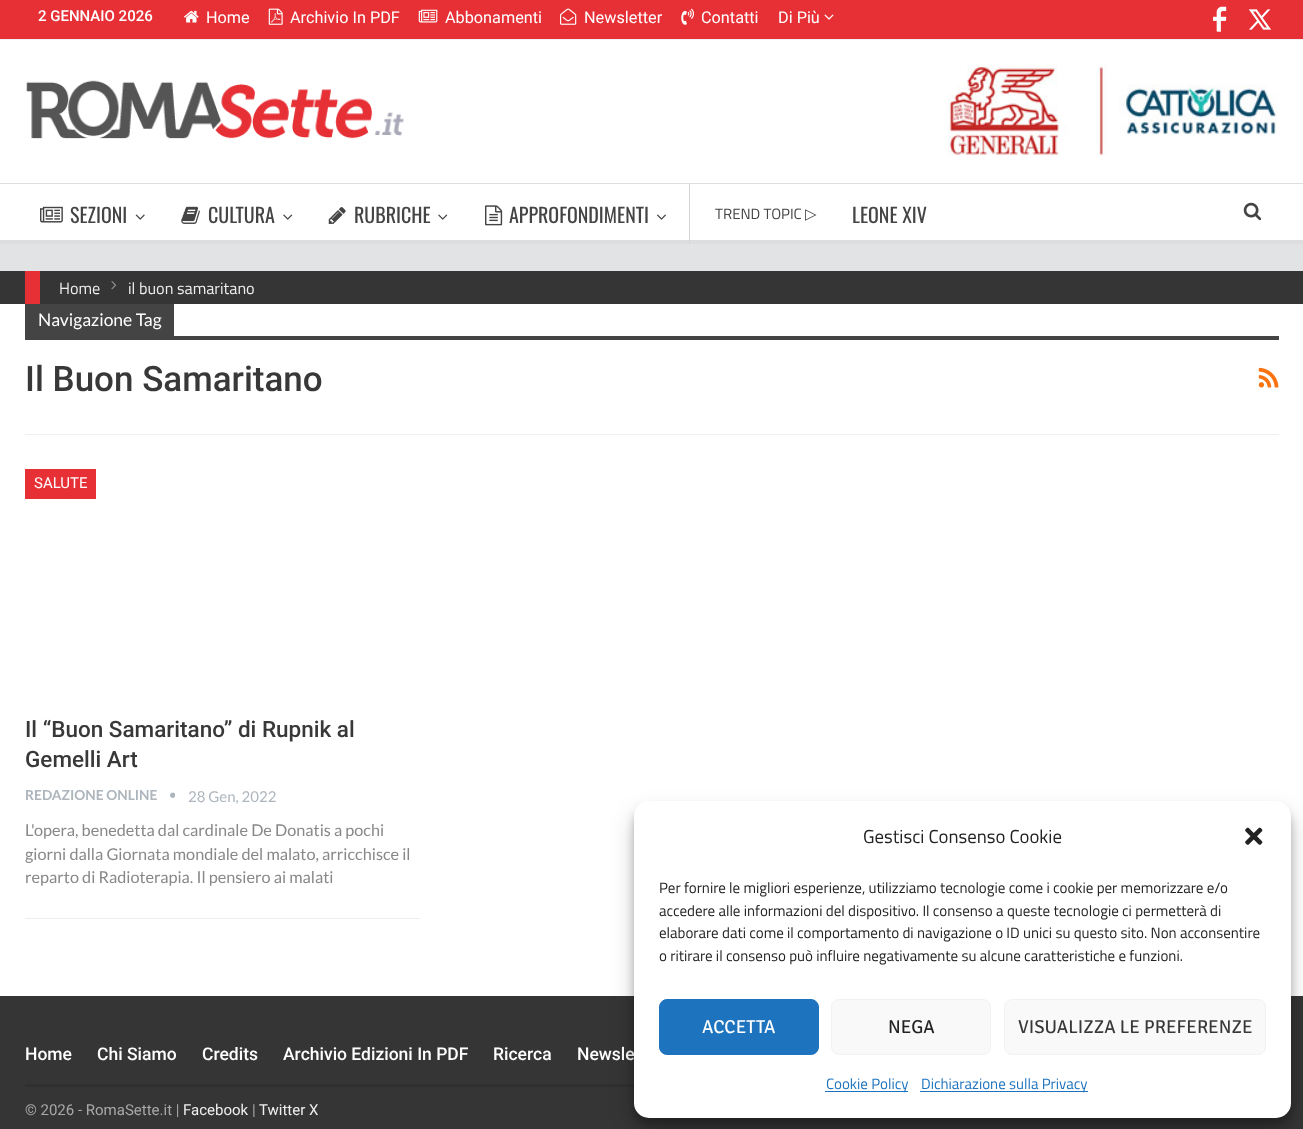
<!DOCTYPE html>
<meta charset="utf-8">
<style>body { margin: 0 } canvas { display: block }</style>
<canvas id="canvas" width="1303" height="1129"></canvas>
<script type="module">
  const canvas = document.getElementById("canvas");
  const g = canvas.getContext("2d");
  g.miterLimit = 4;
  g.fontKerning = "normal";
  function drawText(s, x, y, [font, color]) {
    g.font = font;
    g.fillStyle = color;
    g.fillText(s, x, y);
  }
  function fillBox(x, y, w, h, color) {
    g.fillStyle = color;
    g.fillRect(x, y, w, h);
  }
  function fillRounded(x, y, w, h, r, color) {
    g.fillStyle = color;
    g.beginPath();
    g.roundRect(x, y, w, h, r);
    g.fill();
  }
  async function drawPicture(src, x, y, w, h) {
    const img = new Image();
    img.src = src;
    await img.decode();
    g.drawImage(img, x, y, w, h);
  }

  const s1 = ["500 15px Roboto", "#FFFFFF"];
  const s2 = ["16.25px Roboto", "#FFFFFF"];
  const s3 = ["20px Oswald", "#444444"];
  const s4 = ["15px Titillium Web", "#444444"];
  const s5 = ["15px DejaVu Sans", "#444444"];
  const s6 = ["16.25px Titillium Web", "#EEEEEE"];
  const s7 = ["17.5px Lato", "#FFFFFF"];
  const s8 = ["500 35px Roboto", "#383838"];
  const s9 = ["15px Roboto", "#FFFFFF"];
  const s10 = ["500 22.5px Roboto", "#383838"];
  const s11 = ["bold 13.75px Lato", "#ADB5BD"];
  const s12 = ["15px Lato", "#ADB5BD"];
  const s13 = ["16.25px Lato", "#888888"];
  const s14 = ["500 17.5px Roboto", "#FFFFFF"];
  const s15 = ["15px Roboto", "#A8A8A8"];
  const s16 = ["15px Roboto", "#EEEEEE"];
  const s17 = ["18.75px Titillium Web", "#222222"];
  const s18 = ["15px Titillium Web", "#222222"];
  const s19 = ["300 18.75px Signika Negative", "#FFFFFF"];
  const s20 = ["300 18.75px Signika Negative", "#222222"];
  const s21 = ["300 18.75px Signika Negative", "#383838"];
  const s22 = ["15px Titillium Web", "#1E73BE"];

  fillBox(0, 0, 1303, 1129, "#E1E3E4");
  fillBox(0, 40, 1303, 200, "#FFFFFF");
  fillBox(0, 0, 1303, 39, "#E63036");
  fillBox(0, 39, 1303, 1, "#EFEFEF");
  drawText("2 GENNAIO 2026", 38, 21, s1);
  await drawPicture("pic1.png", 184, 10, 15, 13);
  drawText("Home", 206, 23, s2);
  await drawPicture("pic2.png", 268, 8, 15, 17);
  drawText("Archivio In PDF", 290, 23, s2);
  await drawPicture("pic3.png", 418, 9, 20, 14);
  drawText("Abbonamenti", 445, 23, s2);
  await drawPicture("pic4.png", 560, 8, 17, 17);
  drawText("Newsletter", 584, 23, s2);
  await drawPicture("pic5.png", 681, 8, 13, 17);
  drawText("Contatti", 701, 23, s2);
  drawText("Di Più", 778, 23, s2);
  await drawPicture("pic6.png", 824, 14, 10, 6);
  await drawPicture("pic7.png", 1213, 6, 14, 26);
  await drawPicture("pic8.png", 1248, 9, 24, 21);
  await drawPicture("pic9.png", 26, 80, 378, 59);
  await drawPicture("pic10.png", 947, 64, 331, 91);
  fillBox(0, 183, 1303, 1, "#DEDEDE");
  fillBox(0, 240, 1303, 4, "#DEDEDE");
  await drawPicture("pic11.png", 40, 206, 23, 17);
  drawText("SEZIONI", 70, 223, s3);
  await drawPicture("pic12.png", 135, 214, 10, 6);
  await drawPicture("pic13.png", 181, 206, 19, 18);
  drawText("CULTURA", 208, 223, s3);
  await drawPicture("pic14.png", 283, 214, 10, 6);
  await drawPicture("pic15.png", 328, 207, 18, 17);
  drawText("RUBRICHE", 354, 223, s3);
  await drawPicture("pic14.png", 438, 214, 10, 6);
  await drawPicture("pic16.png", 485, 205, 18, 21);
  drawText("APPROFONDIMENTI", 509, 223, s3);
  await drawPicture("pic17.png", 657, 214, 9, 6);
  fillBox(689, 184, 1, 60, "#D4D4D4");
  drawText("TREND TOPIC", 715, 219, s4);
  drawText("▷", 805, 219, s5);
  drawText("LEONE XIV", 852, 223, s3);
  await drawPicture("pic18.png", 1243, 202, 19, 19);
  fillBox(0, 271, 1303, 33, "#353535");
  fillBox(25, 271, 15, 33, "#E63036");
  drawText("Home", 59, 294, s6);
  await drawPicture("pic19.png", 111, 281, 6, 9);
  drawText("il buon samaritano", 128, 294, s6);
  fillBox(0, 304, 1303, 692, "#FFFFFF");
  fillBox(25, 434, 1254, 1, "#F0F0F0");
  fillBox(25, 304, 149, 32, "#444444");
  drawText("Navigazione Tag", 38, 326, s7);
  fillBox(25, 336, 1254, 4, "#444444");
  drawText("Il Buon Samaritano", 25, 391, s8);
  await drawPicture("pic20.png", 1258, 367, 21, 21);
  fillBox(25, 469, 71, 30, "#E63036");
  drawText("SALUTE", 34, 488, s9);
  drawText("Il “Buon Samaritano” di Rupnik al", 25, 737, s10);
  drawText("Gemelli Art", 25, 767, s10);
  drawText("REDAZIONE ONLINE", 25, 800, s11);
  await drawPicture("pic21.png", 170, 792, 5, 6);
  drawText("28 Gen, 2022", 188, 802, s12);
  fillBox(25, 918, 395, 1, "#EDEDED");
  drawText("L'opera, benedetta dal cardinale De Donatis a pochi", 25, 836, s13);
  drawText("giorni dalla Giornata mondiale del malato, arricchisce il", 25, 860, s13);
  drawText("reparto di Radioterapia. Il pensiero ai malati", 25, 883, s13);
  fillBox(0, 996, 1303, 133, "#353535");
  fillBox(25, 1084, 609, 3, "#2F2F2F");
  drawText("Home", 25, 1060, s14);
  drawText("Chi Siamo", 97, 1060, s14);
  drawText("Credits", 202, 1060, s14);
  drawText("Archivio Edizioni In PDF", 283, 1060, s14);
  drawText("Ricerca", 493, 1060, s14);
  drawText("Newsle", 577, 1060, s14);
  drawText("© 2026 - RomaSette.it |", 25, 1115, s15);
  drawText("Facebook", 183, 1115, s16);
  drawText("|", 252, 1115, s15);
  drawText("Twitter X", 259, 1115, s16);
  g.fillStyle = "rgba(0, 0, 0, 0.23)";
  g.filter = "blur(4px)";
  g.beginPath();
  g.roundRect(634, 809, 657, 316, 15);
  g.fill();
  g.filter = "none";
  g.fillStyle = "rgba(0, 0, 0, 0.19)";
  g.filter = "blur(12.5px)";
  g.beginPath();
  g.roundRect(634, 814, 657, 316, 15);
  g.fill();
  g.filter = "none";
  fillRounded(634, 801, 657, 317, 15, "#FFFFFF");
  drawText("Gestisci Consenso Cookie", 863, 843, s17);
  await drawPicture("pic22.png", 1245, 827, 18, 18);
  drawText("Per fornire le migliori esperienze, utilizziamo tecnologie come i cookie per memorizzare e/o", 659, 893, s18);
  drawText("accedere alle informazioni del dispositivo. Il consenso a queste tecnologie ci permetterà di", 659, 916, s18);
  drawText("elaborare dati come il comportamento di navigazione o ID unici su questo sito. Non acconsentire", 659, 938, s18);
  drawText("o ritirare il consenso può influire negativamente su alcune caratteristiche e funzioni.", 659, 961, s18);
  g.fillStyle = "#1E73BE";
  g.beginPath();
  g.roundRect(659.5, 999.5, 159, 55, 7.5);
  g.fill();
  g.strokeStyle = "#1E73BE";
  g.stroke();
  drawText("ACCETTA", 702, 1033, s19);
  g.fillStyle = "#F9F9F9";
  g.beginPath();
  g.roundRect(831.5, 999.5, 159, 55, 7.5);
  g.fill();
  g.strokeStyle = "#F2F2F2";
  g.stroke();
  drawText("NEGA", 888, 1033, s20);
  g.fillStyle = "#F9F9F9";
  g.beginPath();
  g.roundRect(1004.5, 999.5, 261, 55, 7.5);
  g.fill();
  g.stroke();
  drawText("VISUALIZZA LE PREFERENZE", 1018, 1033, s21);
  fillBox(825, 1091, 83, 1, "#1E73BE");
  drawText("Cookie Policy", 826, 1089, s22);
  fillBox(920, 1091, 168, 1, "#1E73BE");
  drawText("Dichiarazione sulla Privacy", 921, 1089, s22);
</script>
